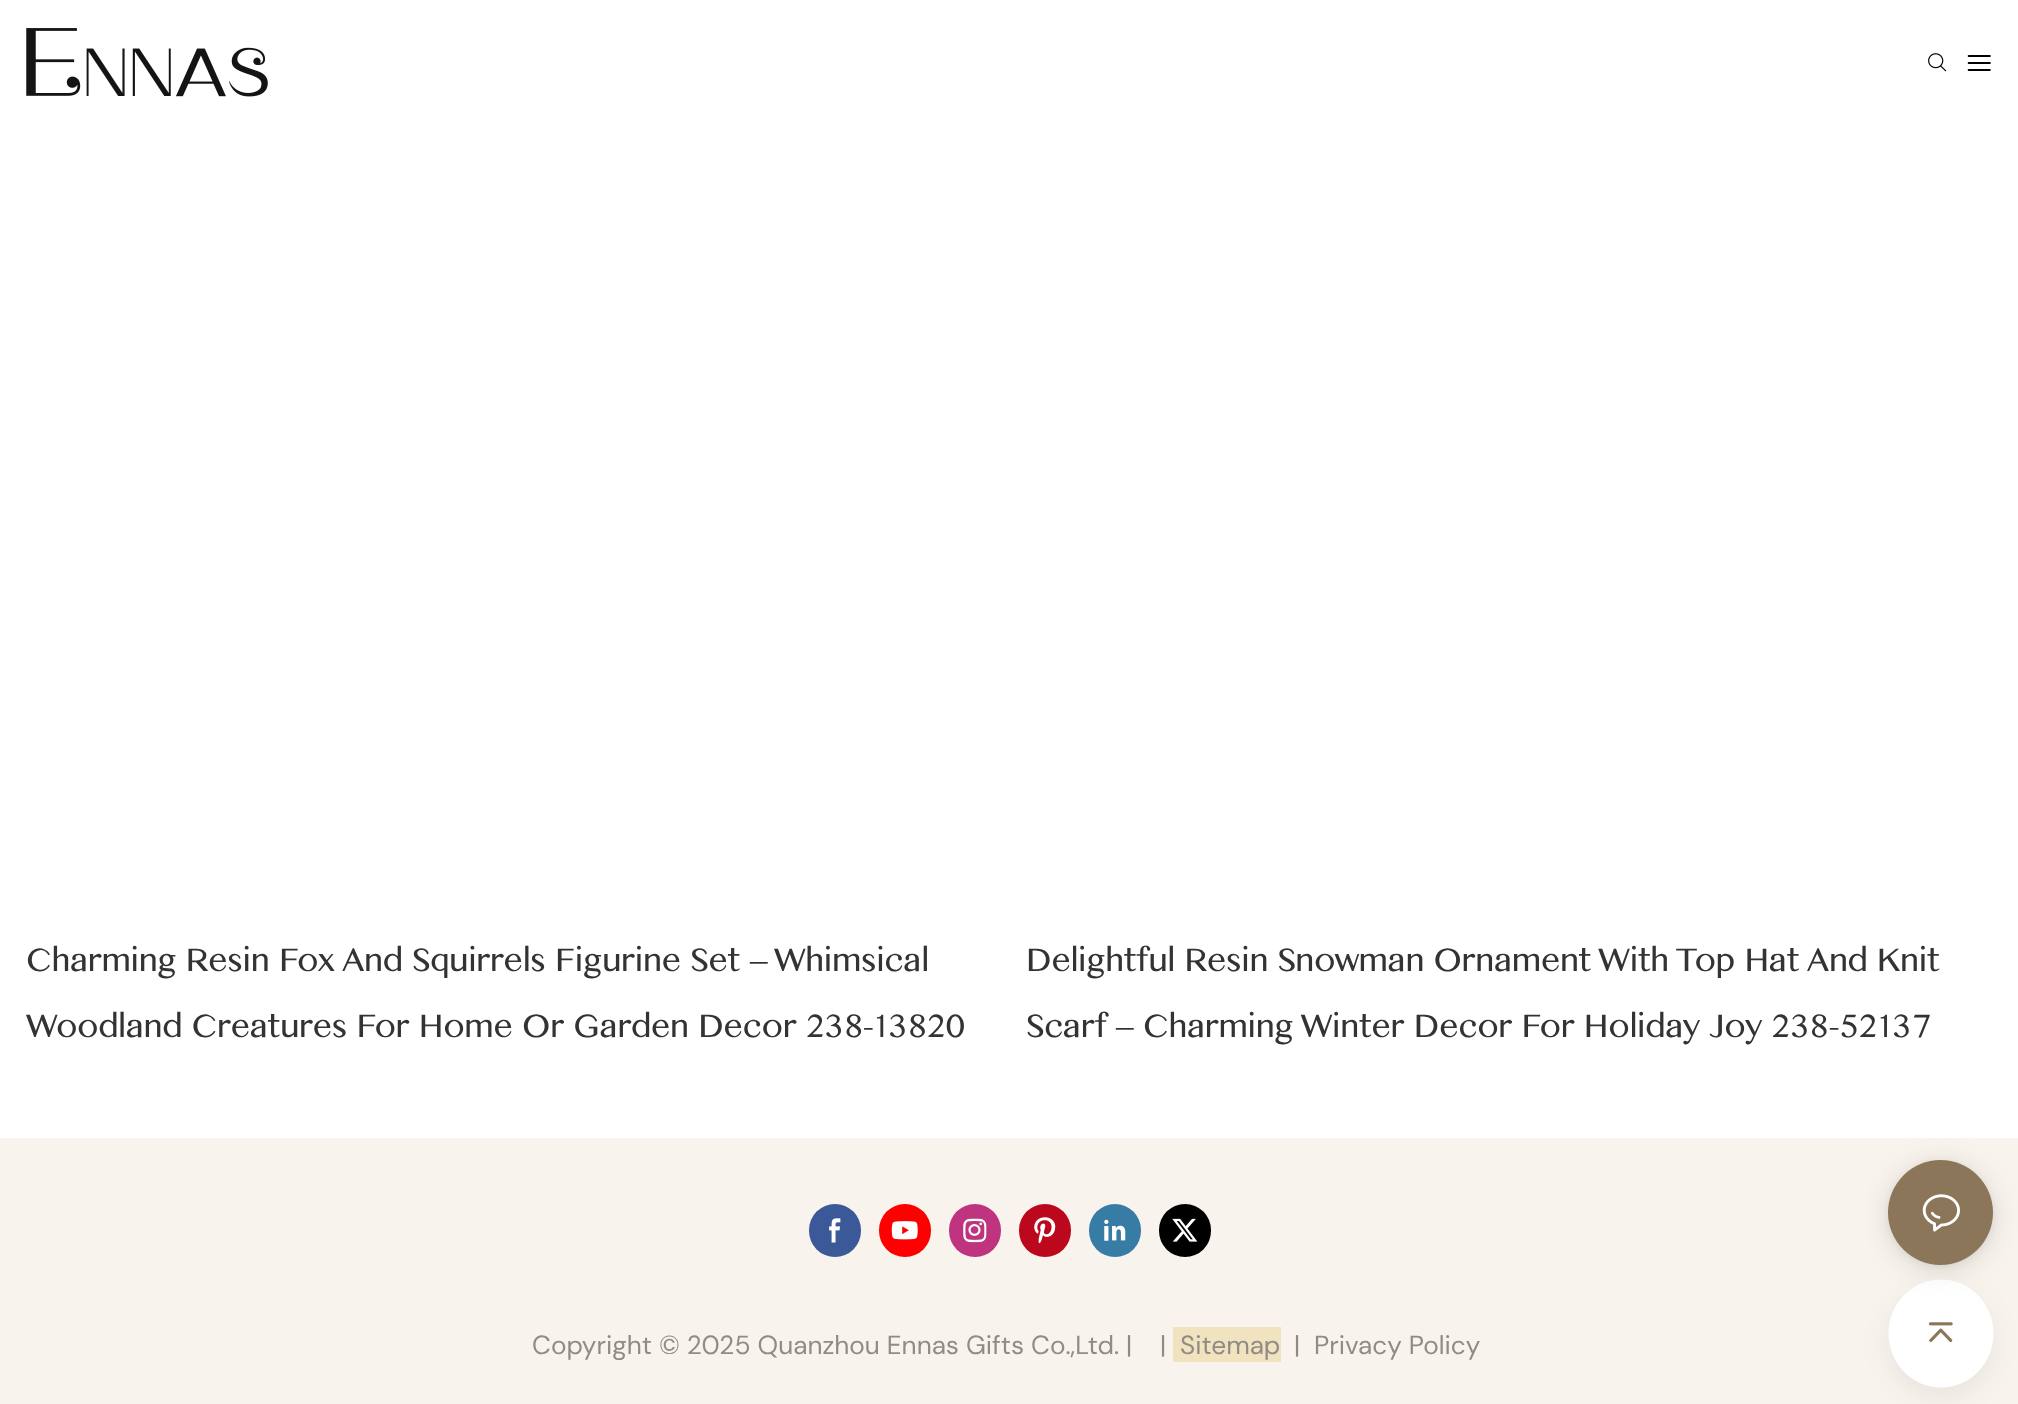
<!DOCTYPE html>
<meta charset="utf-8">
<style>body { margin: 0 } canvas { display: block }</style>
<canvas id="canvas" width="2018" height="1404"></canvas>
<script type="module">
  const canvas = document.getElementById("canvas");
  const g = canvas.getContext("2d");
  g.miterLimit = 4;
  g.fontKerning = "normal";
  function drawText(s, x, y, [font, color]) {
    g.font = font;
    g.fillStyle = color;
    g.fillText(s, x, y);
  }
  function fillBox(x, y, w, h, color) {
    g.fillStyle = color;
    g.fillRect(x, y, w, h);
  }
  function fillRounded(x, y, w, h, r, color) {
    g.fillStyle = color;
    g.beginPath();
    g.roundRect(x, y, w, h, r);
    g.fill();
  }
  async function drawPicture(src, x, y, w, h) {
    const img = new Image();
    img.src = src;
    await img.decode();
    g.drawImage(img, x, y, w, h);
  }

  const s1 = ["35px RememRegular", "#333333"];
  const s2 = ["35px Liberation Serif", "#333333"];
  const s3 = ["26.25px DM Sans", "#908B85"];

  fillBox(0, 0, 2018, 1404, "#FFFFFF");
  await drawPicture("pic1.png", 26, 28, 242, 69);
  await drawPicture("pic2.png", 1928, 53, 19, 19);
  await drawPicture("pic3.png", 1967, 55, 24, 16);
  drawText("Charming Resin Fox And Squirrels Figurine Set", 26, 971, s1);
  drawText("–", 750, 971, s2);
  drawText("Whimsical", 774, 971, s1);
  drawText("Woodland Creatures For Home Or Garden Decor 238-13820", 26, 1037, s1);
  drawText("Delightful Resin Snowman Ornament With Top Hat And Knit", 1026, 971, s1);
  drawText("Scarf", 1026, 1037, s1);
  drawText("–", 1116, 1037, s2);
  drawText("Charming Winter Decor For Holiday Joy 238-52137", 1143, 1037, s1);
  fillBox(0, 1138, 2018, 266, "#F8F4ED");
  fillRounded(809, 1204, 52, 53, 26, "#3B5998");
  await drawPicture("pic4.png", 829, 1218, 12, 25);
  fillRounded(879, 1204, 52, 53, 26, "#FF0000");
  await drawPicture("pic5.png", 891, 1221, 27, 19);
  fillRounded(949, 1204, 52, 53, 26, "#BE347F");
  await drawPicture("pic6.png", 963, 1218, 24, 25);
  fillRounded(1019, 1204, 52, 53, 26, "#BC081C");
  await drawPicture("pic7.png", 1034, 1217, 22, 27);
  fillRounded(1089, 1204, 52, 53, 26, "#377CA5");
  await drawPicture("pic8.png", 1104, 1219, 22, 22);
  fillRounded(1159, 1204, 52, 53, 26, "#000000");
  await drawPicture("pic9.png", 1172, 1218, 26, 24);
  drawText("Copyright © 2025 Quanzhou Ennas Gifts Co.,Ltd. |", 532, 1354, s3);
  drawText("|", 1160, 1354, s3);
  fillBox(1173, 1327, 108, 35, "#F1E3C0");
  drawText("Sitemap", 1180, 1354, s3);
  drawText("|", 1294, 1354, s3);
  drawText("Privacy Policy", 1314, 1354, s3);
  g.fillStyle = "rgba(40, 47, 54, 0.08)";
  g.filter = "blur(13px)";
  g.beginPath();
  g.roundRect(1888, 1288, 105, 109, 52.5);
  g.fill();
  g.filter = "none";
  g.fillStyle = "#FFFFFF";
  g.beginPath();
  g.ellipse(1941, 1333.5, 52.5, 54, 0, 0, Math.PI * 2);
  g.fill();
  g.fillStyle = "rgba(0, 0, 0, 0.12)";
  g.filter = "blur(14px)";
  g.beginPath();
  g.roundRect(1888, 1164, 105, 105, 52.5);
  g.fill();
  g.filter = "none";
  g.fillStyle = "rgba(0, 0, 0, 0.06)";
  g.filter = "blur(3.5px)";
  g.beginPath();
  g.roundRect(1888, 1162, 105, 105, 52.5);
  g.fill();
  g.filter = "none";
  g.fillStyle = "#8B7659";
  g.beginPath();
  g.arc(1940.5, 1212.5, 52.5, 0, Math.PI * 2);
  g.fill();
  await drawPicture("pic10.png", 1922, 1194, 38, 38);
  await drawPicture("pic11.png", 1928, 1322, 25, 20);
</script>
